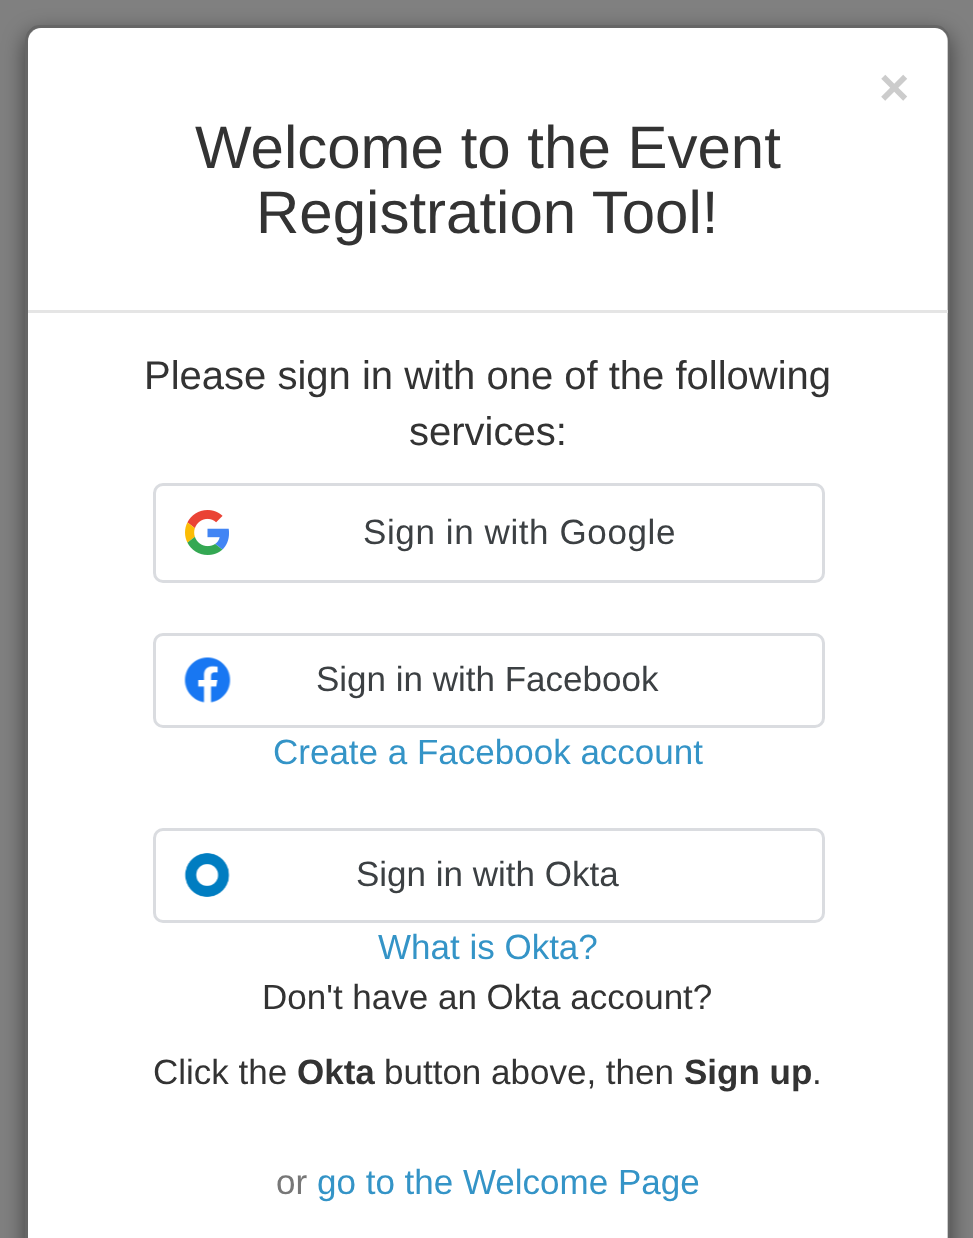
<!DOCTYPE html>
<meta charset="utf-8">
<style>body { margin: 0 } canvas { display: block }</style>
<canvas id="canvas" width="973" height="1238"></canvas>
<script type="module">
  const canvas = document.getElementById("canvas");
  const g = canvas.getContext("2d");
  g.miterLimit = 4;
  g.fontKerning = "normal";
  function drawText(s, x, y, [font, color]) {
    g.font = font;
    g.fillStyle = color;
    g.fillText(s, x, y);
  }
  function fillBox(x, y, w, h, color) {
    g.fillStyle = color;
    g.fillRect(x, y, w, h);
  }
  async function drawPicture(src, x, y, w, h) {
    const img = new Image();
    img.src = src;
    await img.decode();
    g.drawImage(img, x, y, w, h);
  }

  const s1 = ["bold 52px Liberation Sans", "#CCCCCC"];
  const s2 = ["60px Liberation Sans", "#333333"];
  const s3 = ["40px Liberation Sans", "#333333"];
  const s4 = ["35px Liberation Sans", "#3C4043"];
  const s5 = ["35px Liberation Sans", "#3494C7"];
  const s6 = ["35px Liberation Sans", "#333333"];
  const s7 = ["bold 35px Liberation Sans", "#333333"];
  const s8 = ["35px Liberation Sans", "#777777"];

  fillBox(0, 0, 973, 1238, "#808080");
  g.save();
  g.beginPath();
  g.moveTo(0, 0);
  g.lineTo(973, 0);
  g.lineTo(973, 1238);
  g.lineTo(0, 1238);
  g.closePath();
  g.moveTo(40, 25);
  g.lineTo(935, 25);
  g.bezierCurveTo(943.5, 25, 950, 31.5, 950, 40);
  g.lineTo(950, 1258);
  g.bezierCurveTo(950, 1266.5, 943.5, 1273, 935, 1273);
  g.lineTo(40, 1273);
  g.bezierCurveTo(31.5, 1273, 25, 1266.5, 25, 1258);
  g.lineTo(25, 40);
  g.bezierCurveTo(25, 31.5, 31.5, 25, 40, 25);
  g.closePath();
  g.clip("evenodd");
  g.fillStyle = "rgba(0, 0, 0, 0.5)";
  g.filter = "blur(11px)";
  g.beginPath();
  g.roundRect(25, 33, 925, 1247, 15);
  g.fill();
  g.filter = "none";
  g.restore();
  g.fillStyle = "#FFFFFF";
  g.beginPath();
  g.moveTo(41, 28);
  g.lineTo(935, 28);
  g.bezierCurveTo(942, 28, 948, 34, 948, 41);
  g.lineTo(948, 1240);
  g.lineTo(28, 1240);
  g.lineTo(28, 41);
  g.bezierCurveTo(28, 34, 34, 28, 41, 28);
  g.closePath();
  g.fill();
  g.beginPath();
  g.roundRect(26.5, 26.5, 922, 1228, 13.5);
  g.strokeStyle = "rgba(0, 0, 0, 0.2)";
  g.lineWidth = 3;
  g.stroke();
  fillBox(28, 310, 920, 3, "#E5E5E5");
  drawText("×", 879, 105, s1);
  drawText("Welcome to the Event", 195, 168, s2);
  drawText("Registration Tool!", 256, 233, s2);
  drawText("Please sign in with one of the following", 144, 389, s3);
  drawText("services:", 409, 445, s3);
  g.beginPath();
  g.roundRect(154.5, 484.5, 669, 97, 8.5);
  g.strokeStyle = "#DADCE0";
  g.stroke();
  await drawPicture("pic1.png", 185, 510, 44, 45);
  g.letterSpacing = "0.6px";
  drawText("Sign in with Google", 363, 544, s4);
  g.beginPath();
  g.roundRect(154.5, 634.5, 669, 92, 8.5);
  g.stroke();
  await drawPicture("pic2.png", 184, 657, 47, 46);
  g.letterSpacing = "0px";
  drawText("Sign in with Facebook", 316, 691, s4);
  drawText("Create a Facebook account", 273, 764, s5);
  g.beginPath();
  g.roundRect(154.5, 829.5, 669, 92, 8.5);
  g.stroke();
  await drawPicture("pic3.png", 184, 853, 46, 44);
  drawText("Sign in with Okta", 356, 886, s4);
  drawText("What is Okta?", 378, 959, s5);
  drawText("Don't have an Okta account?", 262, 1009, s6);
  drawText("Click the", 153, 1084, s6);
  drawText("Okta", 297, 1084, s7);
  drawText("button above, then", 384, 1084, s6);
  drawText("Sign up", 684, 1084, s7);
  drawText(".", 812, 1084, s6);
  drawText("or", 276, 1194, s8);
  drawText("go to the Welcome Page", 317, 1194, s5);
</script>
